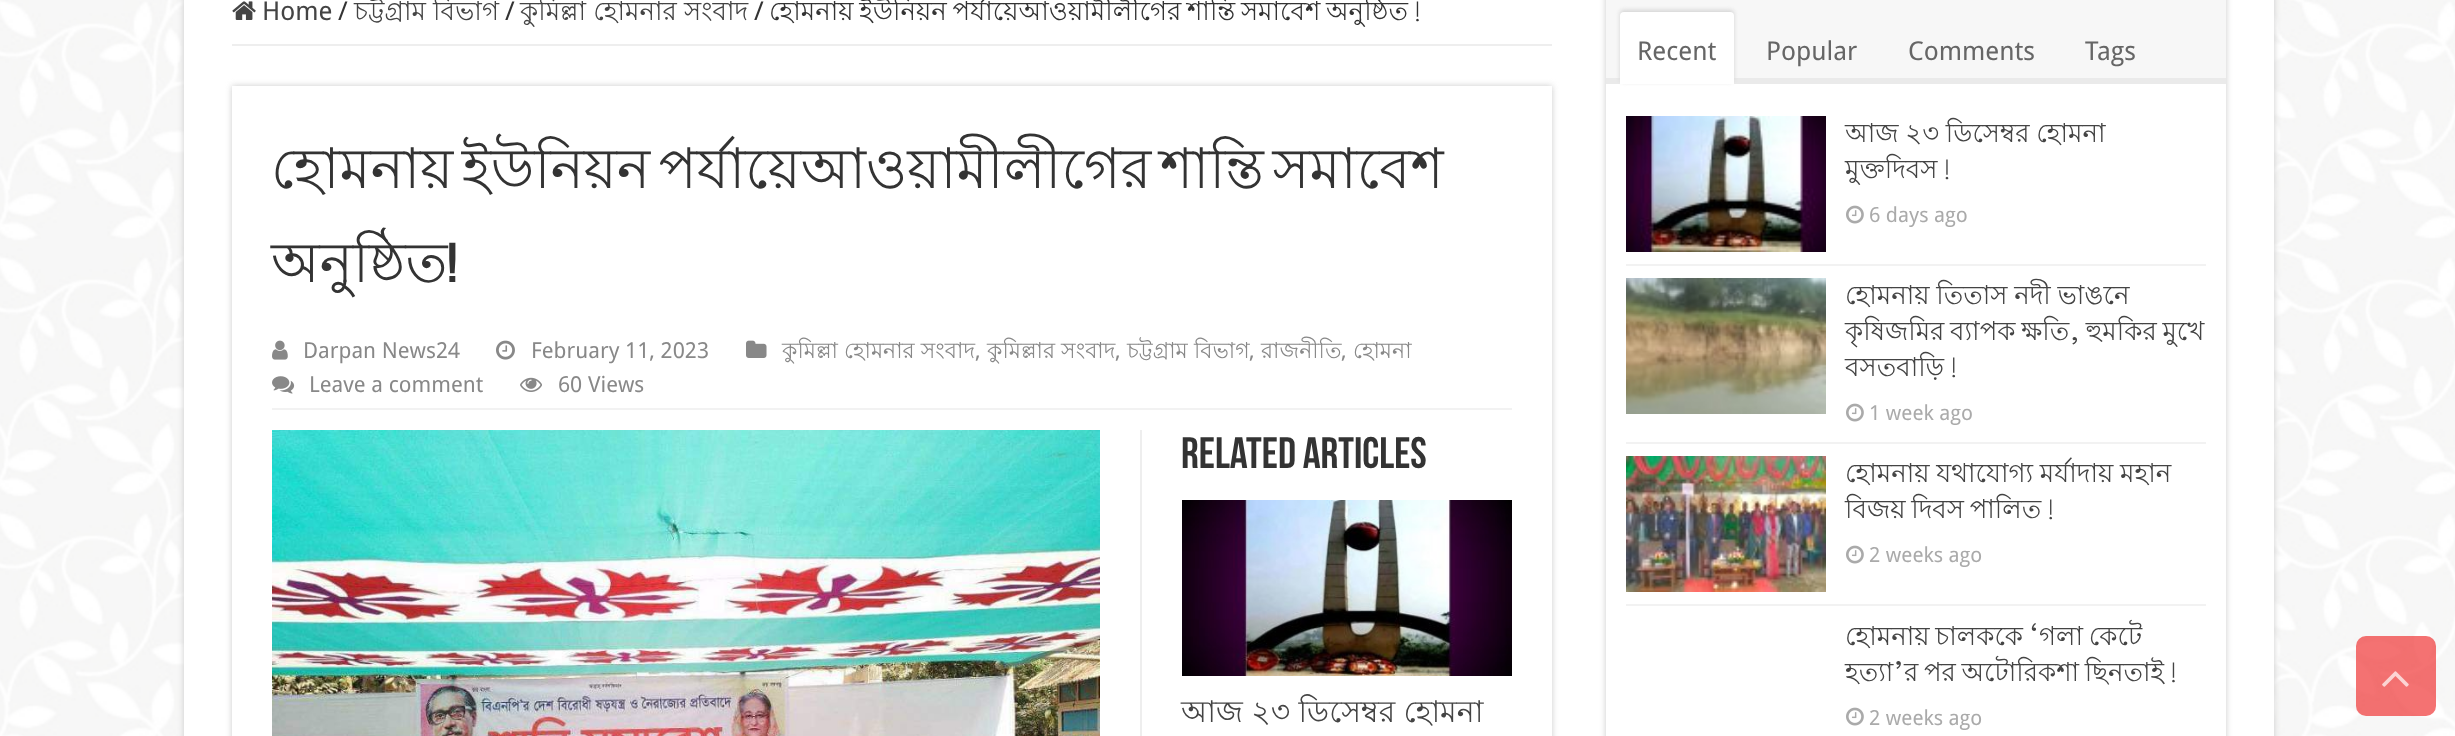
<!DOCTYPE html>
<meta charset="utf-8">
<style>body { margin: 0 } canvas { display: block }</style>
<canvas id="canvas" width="2455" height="736"></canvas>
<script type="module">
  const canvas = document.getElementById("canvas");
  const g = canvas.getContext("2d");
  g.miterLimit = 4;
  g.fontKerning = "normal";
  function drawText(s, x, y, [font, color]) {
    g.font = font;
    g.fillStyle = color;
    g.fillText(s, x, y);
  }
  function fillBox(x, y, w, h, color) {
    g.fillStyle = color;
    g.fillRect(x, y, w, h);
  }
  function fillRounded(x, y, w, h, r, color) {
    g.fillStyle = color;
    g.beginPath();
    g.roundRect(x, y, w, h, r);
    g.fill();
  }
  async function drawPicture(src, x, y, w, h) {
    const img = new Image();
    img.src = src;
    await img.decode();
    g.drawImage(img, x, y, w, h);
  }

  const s1 = ["26px Droid Sans", "#444444"];
  const s2 = ["26px Droid Sans", "#333333"];
  const s3 = ["26px Lohit Bengali", "#444444"];
  const s4 = ["26px Lohit Bengali", "#333333"];
  const s5 = ["56px Lohit Bengali", "#333333"];
  const s6 = ["bold 56px Bebas Neue", "#333333"];
  const s7 = ["22px Droid Sans", "#888888"];
  const s8 = ["22px Lohit Bengali", "#888888"];
  const s9 = ["bold 44px Bebas Neue", "#333333"];
  const s10 = ["30px Lohit Bengali", "#444444"];
  const s11 = ["26px Droid Sans", "#666666"];
  const s12 = ["20.75px Droid Sans", "#AAAAAA"];

  fillBox(0, 0, 2455, 736, "#FFFFFF");
  await drawPicture("pic1.png", 0, 0, 2455, 736);
  g.fillStyle = "#CACACA";
  g.filter = "blur(3px)";
  g.beginPath();
  g.rect(184, -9, 2090, 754);
  g.fill();
  g.filter = "none";
  fillBox(184, 0, 2090, 736, "#FFFFFF");
  fillBox(232, 44, 1320, 2, "#EEEEEE");
  await drawPicture("pic2.png", 232, 1, 24, 19);
  drawText("Home", 262, 20, s1);
  drawText("/", 338, 20, s2);
  drawText("চট্টগ্রাম বিভাগ", 354, 20, s3);
  drawText("/", 505, 20, s2);
  drawText("কুমিল্লা হোমনার সংবাদ", 520, 20, s3);
  g.wordSpacing = "-1.5px";
  drawText("হোমনায় ইউনিয়ন পর্যায়েআওয়ামীলীগের শান্তি সমাবেশ অনুষ্ঠিত!", 769, 20, s4);
  g.wordSpacing = "0px";
  drawText("/", 754, 20, s2);
  g.save();
  g.beginPath();
  g.moveTo(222, 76);
  g.lineTo(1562, 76);
  g.lineTo(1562, 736);
  g.lineTo(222, 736);
  g.closePath();
  g.moveTo(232, 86);
  g.lineTo(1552, 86);
  g.lineTo(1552, 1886);
  g.lineTo(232, 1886);
  g.closePath();
  g.clip("evenodd");
  g.fillStyle = "#CACACA";
  g.filter = "blur(3px)";
  g.beginPath();
  g.rect(232, 86, 1320, 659);
  g.fill();
  g.filter = "none";
  g.restore();
  g.wordSpacing = "-7px";
  drawText("হোমনায় ইউনিয়ন পর্যায়েআওয়ামীলীগের শান্তি সমাবেশ", 271, 188, s5);
  g.wordSpacing = "0px";
  drawText("অনুষ্ঠিত", 271, 282, s5);
  drawText("!", 447, 282, s6);
  fillBox(272, 408, 1240, 2, "#F2F2F2");
  await drawPicture("pic3.png", 272, 340, 16, 20);
  drawText("Darpan News24", 303, 358, s7);
  await drawPicture("pic4.png", 496, 340, 19, 20);
  drawText("February 11, 2023", 531, 358, s7);
  await drawPicture("pic5.png", 746, 340, 21, 18);
  drawText("কুমিল্লা হোমনার সংবাদ", 782, 358, s8);
  drawText(",", 975, 358, s7);
  drawText("কুমিল্লার সংবাদ", 987, 358, s8);
  drawText("চট্টগ্রাম বিভাগ", 1127, 358, s8);
  drawText("রাজনীতি", 1261, 358, s8);
  drawText("হোমনা", 1353, 358, s8);
  drawText(",", 1115, 358, s7);
  drawText(",", 1249, 358, s7);
  drawText(",", 1341, 358, s7);
  await drawPicture("pic6.png", 272, 376, 23, 18);
  drawText("Leave a comment", 309, 392, s7);
  await drawPicture("pic7.png", 520, 377, 22, 15);
  drawText("60 Views", 558, 392, s7);
  await drawPicture("pic8.png", 272, 430, 828, 306);
  fillBox(1140, 430, 2, 306, "#EEEEEE");
  drawText("Related Articles", 1181, 468, s9);
  await drawPicture("pic9.png", 1182, 500, 330, 176);
  drawText("আজ ২৩ ডিসেম্বর হোমনা", 1181, 722, s10);
  g.save();
  g.beginPath();
  g.moveTo(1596, 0);
  g.lineTo(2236, 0);
  g.lineTo(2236, 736);
  g.lineTo(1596, 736);
  g.closePath();
  g.moveTo(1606, -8);
  g.lineTo(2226, -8);
  g.lineTo(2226, 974);
  g.lineTo(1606, 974);
  g.closePath();
  g.clip("evenodd");
  g.fillStyle = "#CACACA";
  g.filter = "blur(3px)";
  g.beginPath();
  g.rect(1606, -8, 620, 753);
  g.fill();
  g.filter = "none";
  g.restore();
  fillBox(1606, 0, 620, 78, "#F7F7F7");
  fillBox(1606, 78, 620, 6, "#EAEAEA");
  g.fillStyle = "#D4D4D4";
  g.filter = "blur(2px)";
  g.beginPath();
  g.roundRect(1620, 10, 114, 72, 4);
  g.fill();
  g.filter = "none";
  g.fillStyle = "#FFFFFF";
  g.beginPath();
  g.roundRect(1620, 12, 114, 72, [4, 4, 0, 0]);
  g.fill();
  drawText("Recent", 1637, 60, s11);
  drawText("Popular", 1766, 60, s11);
  drawText("Comments", 1908, 60, s11);
  drawText("Tags", 2085, 60, s11);
  fillBox(1626, 264, 580, 2, "#F2F2F2");
  await drawPicture("pic10.png", 1626, 116, 200, 136);
  g.wordSpacing = "-0.5px";
  drawText("আজ ২৩ ডিসেম্বর হোমনা", 1845, 142, s3);
  g.wordSpacing = "0px";
  drawText("মুক্তদিবস!", 1845, 178, s3);
  await drawPicture("pic11.png", 1846, 205, 18, 19);
  drawText("6 days ago", 1869, 222, s12);
  fillBox(1626, 442, 580, 2, "#F2F2F2");
  await drawPicture("pic12.png", 1626, 278, 200, 136);
  g.wordSpacing = "-0.5px";
  drawText("হোমনায় তিতাস নদী ভাঙনে", 1845, 304, s3);
  g.wordSpacing = "-1.5px";
  drawText("কৃষিজমির ব্যাপক ক্ষতি, হুমকির মুখে", 1845, 340, s3);
  g.wordSpacing = "0px";
  drawText("বসতবাড়ি!", 1845, 376, s3);
  await drawPicture("pic11.png", 1846, 403, 18, 19);
  drawText("1 week ago", 1869, 420, s12);
  fillBox(1626, 604, 580, 2, "#F2F2F2");
  await drawPicture("pic13.png", 1626, 456, 200, 136);
  g.wordSpacing = "-0.5px";
  drawText("হোমনায় যথাযোগ্য মর্যাদায় মহান", 1845, 482, s3);
  g.wordSpacing = "-1.5px";
  drawText("বিজয় দিবস পালিত!", 1845, 518, s3);
  await drawPicture("pic11.png", 1846, 545, 18, 19);
  g.wordSpacing = "0px";
  drawText("2 weeks ago", 1869, 562, s12);
  g.wordSpacing = "-1.5px";
  drawText("হোমনায় চালককে ‘গলা কেটে", 1845, 645, s3);
  drawText("হত্যা’র পর অটোরিকশা ছিনতাই!", 1845, 681, s3);
  await drawPicture("pic11.png", 1846, 707, 18, 19);
  g.wordSpacing = "0px";
  drawText("2 weeks ago", 1869, 725, s12);
  fillRounded(2356, 636, 80, 80, 10, "rgba(239, 54, 54, 0.7)");
  await drawPicture("pic14.png", 2382, 671, 27, 16);
</script>
